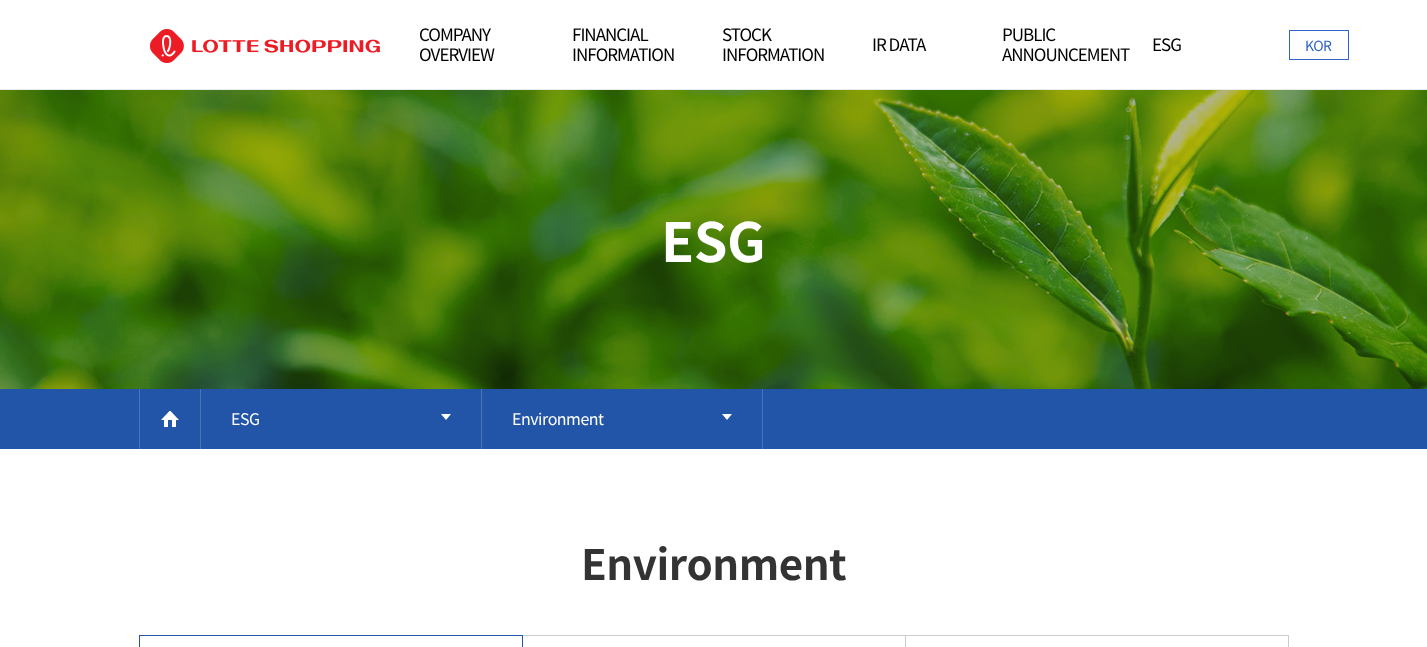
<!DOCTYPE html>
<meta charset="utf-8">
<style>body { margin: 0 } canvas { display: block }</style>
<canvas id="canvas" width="1427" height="647"></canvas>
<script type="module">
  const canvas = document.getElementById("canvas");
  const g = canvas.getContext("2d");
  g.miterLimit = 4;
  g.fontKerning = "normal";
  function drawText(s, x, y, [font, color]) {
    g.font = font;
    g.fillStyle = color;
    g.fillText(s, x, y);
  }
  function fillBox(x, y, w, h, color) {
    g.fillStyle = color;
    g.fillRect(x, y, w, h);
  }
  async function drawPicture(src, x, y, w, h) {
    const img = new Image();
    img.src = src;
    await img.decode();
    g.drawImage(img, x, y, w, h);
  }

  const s1 = ["17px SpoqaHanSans", "#000000"];
  const s2 = ["14px SpoqaHanSans", "#3063C6"];
  const s3 = ["bold 54px SpoqaHanSans", "#FFFFFF"];
  const s4 = ["16px SpoqaHanSans", "#FFFFFF"];
  const s5 = ["bold 42px SpoqaHanSans", "#333333"];

  fillBox(0, 0, 1427, 647, "#FFFFFF");
  g.letterSpacing = "-1px";
  drawText("COMPANY", 419, 41, s1);
  drawText("OVERVIEW", 419, 61, s1);
  drawText("FINANCIAL", 572, 41, s1);
  drawText("INFORMATION", 572, 61, s1);
  drawText("STOCK", 722, 41, s1);
  drawText("INFORMATION", 722, 61, s1);
  drawText("IR DATA", 872, 51, s1);
  drawText("PUBLIC", 1002, 41, s1);
  drawText("ANNOUNCEMENT", 1002, 61, s1);
  drawText("ESG", 1152, 51, s1);
  fillBox(0, 89, 1427, 1, "#EBEBEB");
  await drawPicture("pic1.png", 150, 29, 230, 34);
  g.strokeStyle = "#3063C6";
  g.strokeRect(1289.5, 30.5, 59, 29);
  g.letterSpacing = "-0.5px";
  drawText("KOR", 1305, 51, s2);
  await drawPicture("pic2.png", 0, 90, 1427, 299);
  drawText("ESG", 661, 262, s3);
  fillBox(0, 389, 1427, 60, "#2254A8");
  fillBox(200, 389, 1, 60, "#4A73B8");
  fillBox(139, 389, 1, 60, "#4A73B8");
  await drawPicture("pic3.png", 161, 411, 18, 16);
  await drawPicture("pic4.png", 441, 414, 10, 6);
  fillBox(481, 389, 1, 60, "#4A73B8");
  drawText("ESG", 231, 425, s4);
  await drawPicture("pic4.png", 722, 414, 10, 6);
  fillBox(762, 389, 1, 60, "#4A73B8");
  drawText("Environment", 512, 425, s4);
  drawText("Environment", 581, 580, s5);
  fillBox(522, 635, 384, 1, "#CCCCCC");
  fillBox(139, 635, 384, 1, "#2254A8");
  fillBox(522, 635, 1, 12, "#2254A8");
  fillBox(139, 635, 1, 12, "#2254A8");
  fillBox(905, 635, 1, 12, "#CCCCCC");
  fillBox(905, 635, 384, 1, "#CCCCCC");
  fillBox(1288, 635, 1, 12, "#CCCCCC");
</script>
